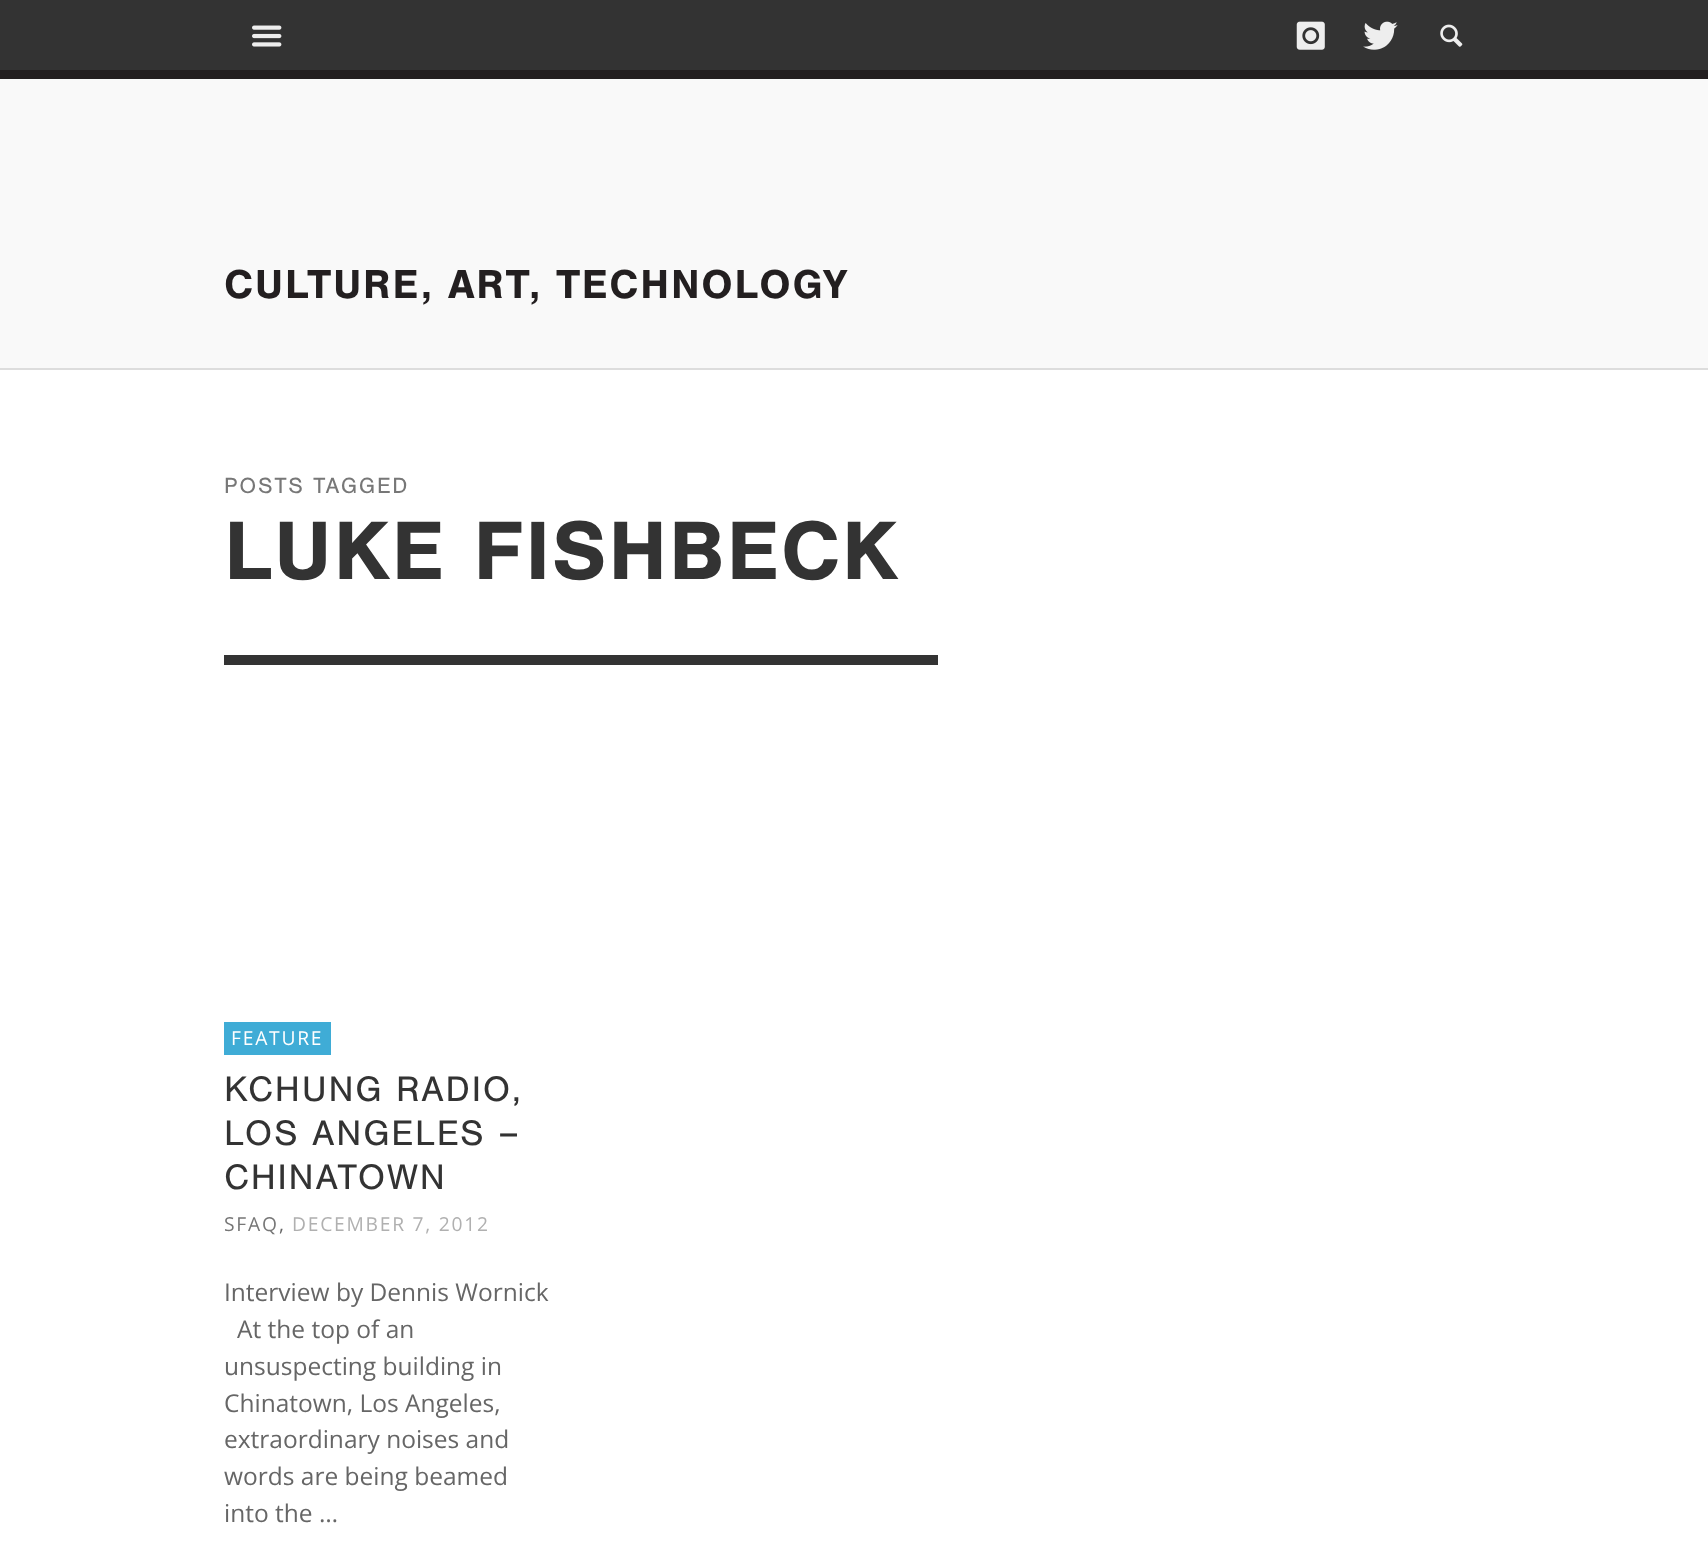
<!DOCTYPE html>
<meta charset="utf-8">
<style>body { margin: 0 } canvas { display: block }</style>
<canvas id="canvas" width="1708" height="1566"></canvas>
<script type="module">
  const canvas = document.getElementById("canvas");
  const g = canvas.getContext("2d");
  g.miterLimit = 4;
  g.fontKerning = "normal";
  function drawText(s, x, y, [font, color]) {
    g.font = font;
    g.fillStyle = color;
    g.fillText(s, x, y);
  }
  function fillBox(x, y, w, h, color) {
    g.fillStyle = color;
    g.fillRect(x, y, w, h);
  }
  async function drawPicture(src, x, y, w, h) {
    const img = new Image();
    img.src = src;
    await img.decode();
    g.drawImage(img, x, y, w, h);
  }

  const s1 = ["bold 42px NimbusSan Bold", "#231F20"];
  const s2 = ["22.75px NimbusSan", "#777777"];
  const s3 = ["bold 85.75px NimbusSan Bold", "#333333"];
  const s4 = ["19.25px Open Sans", "#FFFFFF"];
  const s5 = ["36.75px NimbusSan", "#333333"];
  const s6 = ["19.25px Open Sans", "#777777"];
  const s7 = ["19.25px Open Sans", "#666666"];
  const s8 = ["19.25px Open Sans", "#B0B0B0"];
  const s9 = ["24.5px Open Sans", "#666666"];

  fillBox(0, 0, 1708, 1566, "#FFFFFF");
  fillBox(0, 0, 1708, 70, "#333333");
  fillBox(0, 70, 1708, 9, "#231F20");
  await drawPicture("pic1.png", 252, 25, 30, 22);
  await drawPicture("pic2.png", 1296, 21, 29, 29);
  await drawPicture("pic3.png", 1363, 21, 35, 29);
  await drawPicture("pic4.png", 1440, 24, 23, 23);
  fillBox(0, 79, 1708, 289, "#F9F9F9");
  fillBox(0, 368, 1708, 2, "#DDDDDD");
  g.letterSpacing = "1.75px";
  drawText("CULTURE, ART, TECHNOLOGY", 224, 298, s1);
  drawText("POSTS TAGGED", 224, 493, s2);
  drawText("LUKE FISHBECK", 224, 579, s3);
  fillBox(224, 655, 714, 10, "#333333");
  fillBox(224, 1022, 107, 33, "#3FACD6");
  drawText("FEATURE", 231, 1045, s4);
  drawText("KCHUNG RADIO,", 224, 1101, s5);
  drawText("LOS ANGELES –", 224, 1145, s5);
  drawText("CHINATOWN", 224, 1189, s5);
  drawText("SFAQ", 224, 1231, s6);
  drawText(",", 279, 1231, s7);
  drawText("DECEMBER 7, 2012", 292, 1231, s8);
  g.letterSpacing = "0px";
  drawText("Interview by Dennis Wornick", 224, 1301, s9);
  drawText("At the top of an", 237, 1338, s9);
  drawText("unsuspecting building in", 224, 1375, s9);
  drawText("Chinatown, Los Angeles,", 224, 1412, s9);
  drawText("extraordinary noises and", 224, 1448, s9);
  drawText("words are being beamed", 224, 1485, s9);
  drawText("into the …", 224, 1522, s9);
</script>
